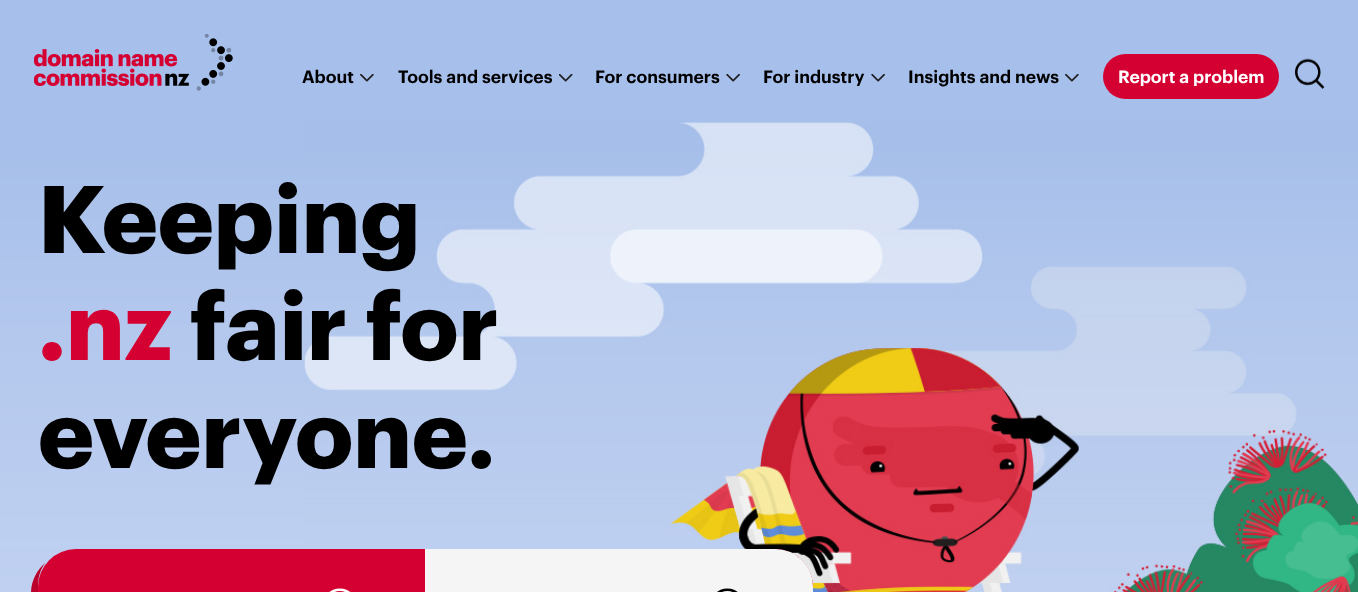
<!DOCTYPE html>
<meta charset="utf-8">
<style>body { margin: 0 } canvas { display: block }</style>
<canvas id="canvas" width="1358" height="592"></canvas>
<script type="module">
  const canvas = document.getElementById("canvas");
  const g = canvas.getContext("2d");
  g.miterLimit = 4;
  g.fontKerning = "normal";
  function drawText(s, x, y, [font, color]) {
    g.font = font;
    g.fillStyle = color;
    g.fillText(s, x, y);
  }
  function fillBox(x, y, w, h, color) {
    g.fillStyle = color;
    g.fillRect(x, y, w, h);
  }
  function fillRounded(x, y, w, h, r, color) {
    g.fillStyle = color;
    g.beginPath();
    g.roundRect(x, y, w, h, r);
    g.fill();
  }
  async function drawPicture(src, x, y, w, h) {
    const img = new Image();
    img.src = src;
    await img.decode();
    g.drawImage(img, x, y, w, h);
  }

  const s1 = ["600 17.5px Graphik", "#000000"];
  const s2 = ["600 17.5px Graphik", "#FFFFFF"];
  const s3 = ["bold 93.75px Graphik", "#000000"];
  const s4 = ["bold 93.75px Graphik", "#D50032"];

  fillBox(0, 0, 1358, 592, "#FFFFFF");
  await drawPicture("pic6.png", 0, 0, 1358, 592);
  await drawPicture("pic1.png", 34, 34, 199, 57);
  drawText("About", 302, 83, s1);
  await drawPicture("pic2.png", 360, 74, 14, 8);
  drawText("Tools and services", 398, 83, s1);
  await drawPicture("pic3.png", 559, 74, 14, 8);
  drawText("For consumers", 595, 83, s1);
  await drawPicture("pic4.png", 726, 74, 14, 8);
  drawText("For industry", 763, 83, s1);
  await drawPicture("pic4.png", 871, 74, 14, 8);
  drawText("Insights and news", 908, 83, s1);
  await drawPicture("pic2.png", 1065, 74, 14, 8);
  fillRounded(1103, 54, 176, 45, 22.5, "#D50032");
  drawText("Report a problem", 1118, 83, s2);
  await drawPicture("pic5.png", 1295, 58, 30, 31);
  await drawPicture("pic9.png", 304, 122, 1054, 470);
  drawText("Keeping", 38, 253, s3);
  drawText(".nz", 38, 360, s4);
  drawText("fair for", 190, 360, s3);
  drawText("everyone.", 38, 468, s3);
  g.fillStyle = "#BC002C";
  g.beginPath();
  g.moveTo(45, 563);
  g.bezierCurveTo(37, 570, 31, 581, 31, 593);
  g.lineTo(31, 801);
  g.bezierCurveTo(31, 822, 48, 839, 69, 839);
  g.lineTo(768, 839);
  g.bezierCurveTo(780, 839, 790, 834, 797, 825);
  g.bezierCurveTo(791, 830, 783, 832, 775, 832);
  g.lineTo(75, 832);
  g.bezierCurveTo(54, 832, 38, 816, 38, 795);
  g.lineTo(38, 586);
  g.bezierCurveTo(38, 578, 40, 570, 45, 563);
  g.closePath();
  g.fill();
  fillRounded(38, 549, 775, 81, 38, "#D50032");
  await drawPicture("pic7.png", 329, 588, 21, 4);
  g.fillStyle = "#F5F5F5";
  g.beginPath();
  g.moveTo(427, 551);
  g.lineTo(775, 551);
  g.bezierCurveTo(795, 551, 811, 567, 811, 587);
  g.lineTo(811, 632);
  g.lineTo(438, 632);
  g.bezierCurveTo(432, 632, 427, 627, 427, 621);
  g.closePath();
  g.fill();
  g.strokeStyle = "#F5F5F5";
  g.lineWidth = 4;
  g.stroke();
  await drawPicture("pic8.png", 717, 588, 21, 4);
</script>
